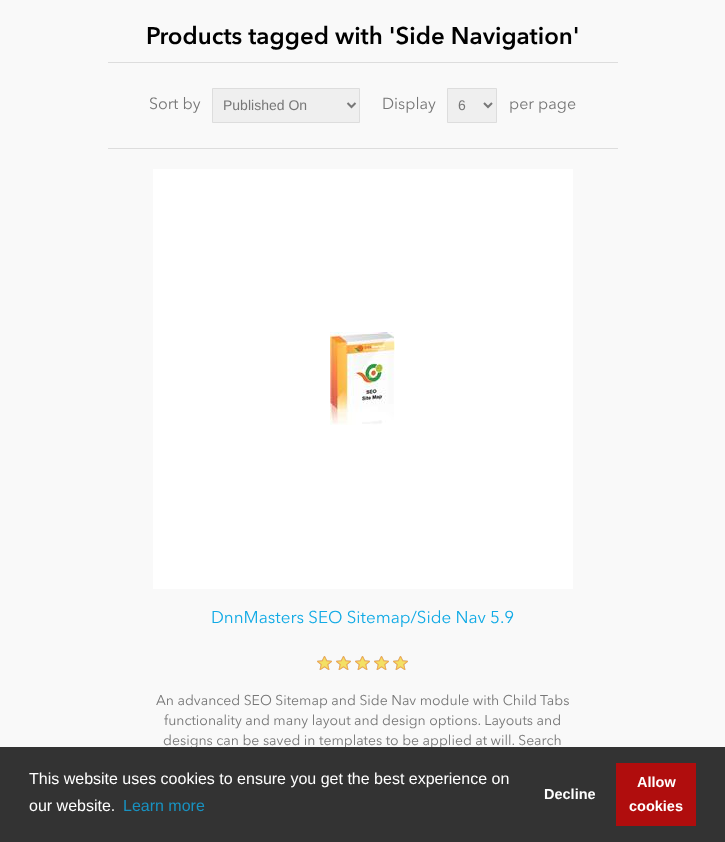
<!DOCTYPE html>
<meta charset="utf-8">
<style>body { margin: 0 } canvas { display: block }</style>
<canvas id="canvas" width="725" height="842"></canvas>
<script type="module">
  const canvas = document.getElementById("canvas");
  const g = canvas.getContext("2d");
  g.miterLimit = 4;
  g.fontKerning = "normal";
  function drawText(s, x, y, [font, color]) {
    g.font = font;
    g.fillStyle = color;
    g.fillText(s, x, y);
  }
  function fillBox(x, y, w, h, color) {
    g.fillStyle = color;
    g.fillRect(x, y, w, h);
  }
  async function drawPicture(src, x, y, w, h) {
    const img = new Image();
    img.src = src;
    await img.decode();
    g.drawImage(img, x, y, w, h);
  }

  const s1 = ["600 24px Avenir Next", "#000000"];
  const s2 = ["16px Avenir Next", "#777777"];
  const s3 = ["14px Liberation Sans", "#777777"];
  const s4 = ["17px Avenir Next", "#11AAE5"];
  const s5 = ["14px Avenir Next", "#777777"];
  const s6 = ["16px Liberation Sans", "#FFFFFF"];
  const s7 = ["16px Liberation Sans", "#1892C1"];
  const s8 = ["bold 14.5px Liberation Sans", "#FFFFFF"];

  fillBox(0, 0, 725, 842, "#F9F9F9");
  fillBox(108, 62, 510, 1, "#DDDDDD");
  drawText("Products tagged with 'Side Navigation'", 146, 44, s1);
  fillBox(108, 148, 510, 1, "#DDDDDD");
  drawText("Sort by", 149, 109, s2);
  g.fillStyle = "#EFEFEF";
  g.beginPath();
  g.rect(212.5, 88.5, 147, 34);
  g.fill();
  g.strokeStyle = "#DDDDDD";
  g.stroke();
  g.beginPath();
  g.moveTo(347.5, 103);
  g.lineTo(351.5, 107);
  g.lineTo(355.5, 103);
  g.strokeStyle = "#777777";
  g.lineWidth = 2;
  g.stroke();
  drawText("Published On", 223, 110, s3);
  drawText("Display", 382, 109, s2);
  g.fillStyle = "#EFEFEF";
  g.beginPath();
  g.rect(447.5, 88.5, 49, 34);
  g.fill();
  g.strokeStyle = "#DDDDDD";
  g.lineWidth = 1;
  g.stroke();
  g.beginPath();
  g.moveTo(484, 103);
  g.lineTo(488, 107);
  g.lineTo(492, 103);
  g.strokeStyle = "#777777";
  g.lineWidth = 2;
  g.stroke();
  drawText("6", 458, 110, s3);
  drawText("per page", 509, 109, s2);
  fillBox(153, 169, 420, 420, "#FFFFFF");
  await drawPicture("pic1.png", 330, 332, 65, 93);
  drawText("DnnMasters SEO Sitemap/Side Nav 5.9", 211, 623, s4);
  await drawPicture("pic2.png", 317, 656, 91, 14);
  await drawPicture("pic3.png", 317, 656, 91, 14);
  drawText("An advanced SEO Sitemap and Side Nav module with Child Tabs", 156, 705, s5);
  drawText("functionality and many layout and design options. Layouts and", 164, 725, s5);
  drawText("designs can be saved in templates to be applied at will. Search", 163, 745, s5);
  fillBox(0, 747, 725, 95, "#333333");
  drawText("This website uses cookies to ensure you get the best experience on", 29, 784, s6);
  drawText("our website.", 29, 811, s6);
  drawText("Learn more", 123, 811, s7);
  drawText("Decline", 544, 799, s8);
  fillBox(616, 763, 80, 63, "#B00D0D");
  drawText("Allow", 637, 787, s8);
  drawText("cookies", 629, 811, s8);
</script>
